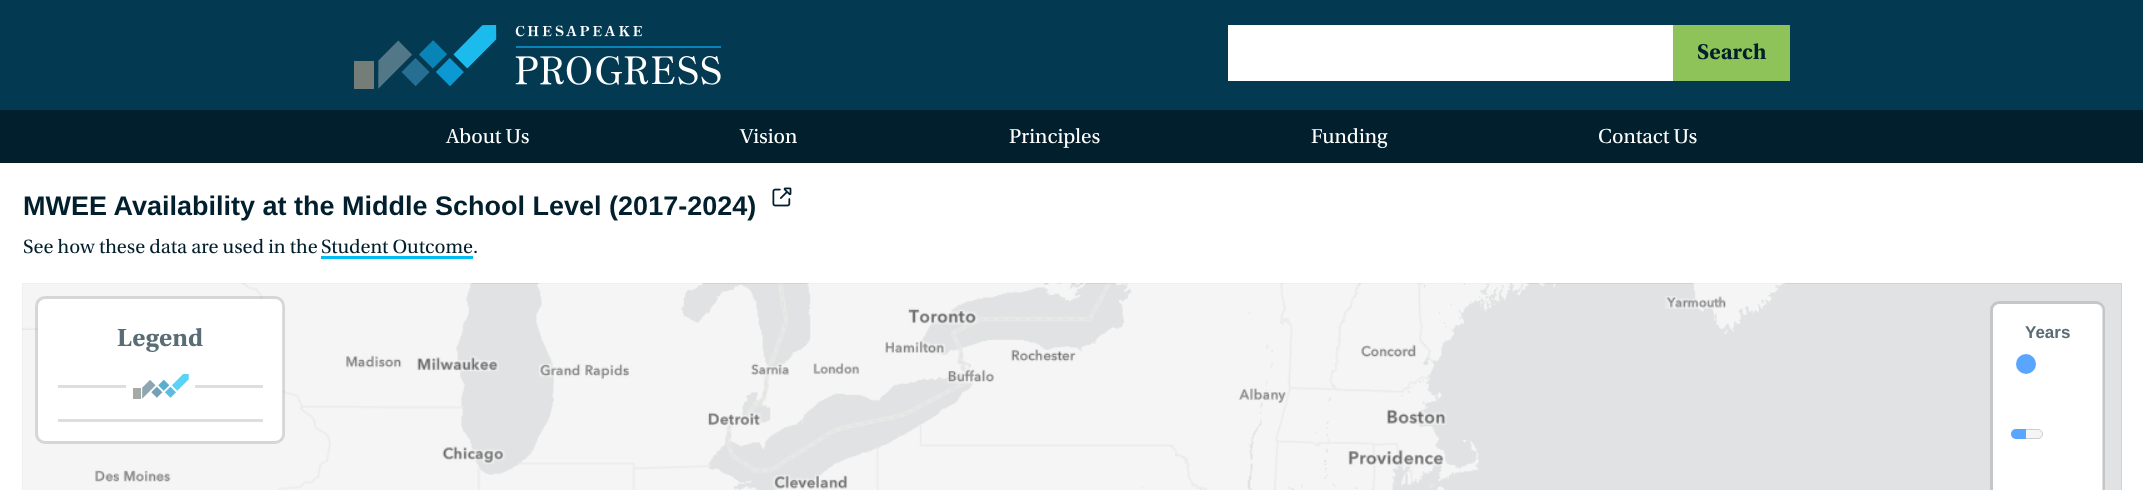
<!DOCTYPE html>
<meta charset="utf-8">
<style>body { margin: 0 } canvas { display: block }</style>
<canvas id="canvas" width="2143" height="490"></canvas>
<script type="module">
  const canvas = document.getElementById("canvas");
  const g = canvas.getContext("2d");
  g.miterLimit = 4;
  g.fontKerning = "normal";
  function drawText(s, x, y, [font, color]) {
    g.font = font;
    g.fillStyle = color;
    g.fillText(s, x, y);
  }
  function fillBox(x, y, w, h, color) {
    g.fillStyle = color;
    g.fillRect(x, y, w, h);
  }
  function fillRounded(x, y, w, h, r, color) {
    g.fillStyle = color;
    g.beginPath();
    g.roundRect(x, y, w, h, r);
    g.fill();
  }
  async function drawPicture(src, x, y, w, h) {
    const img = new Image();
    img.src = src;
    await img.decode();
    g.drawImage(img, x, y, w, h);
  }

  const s1 = ["bold 22.5px Utopia", "#011F2C"];
  const s2 = ["21.25px Utopia", "#FFFFFF"];
  const s3 = ["bold 27px Liberation Sans", "#011F2C"];
  const s4 = ["20.25px Utopia", "#011F2C"];
  const s5 = ["bold 26px Utopia", "#5A6D76"];
  const s6 = ["bold 17px Liberation Sans", "#5A6D76"];

  fillBox(0, 0, 2143, 490, "#033951");
  await drawPicture("pic1.png", 354, 25, 367, 64);
  fillBox(1228, 25, 445, 56, "#FFFFFF");
  fillBox(1673, 25, 117, 56, "#8DC358");
  drawText("Search", 1697, 59, s1);
  fillBox(0, 110, 2143, 53, "#011F2C");
  drawText("About Us", 446, 143, s2);
  drawText("Vision", 740, 143, s2);
  drawText("Principles", 1009, 143, s2);
  drawText("Funding", 1311, 143, s2);
  drawText("Contact Us", 1598, 143, s2);
  fillBox(0, 163, 2143, 327, "#FFFFFF");
  drawText("MWEE Availability at the Middle School Level (2017-2024)", 23, 215, s3);
  await drawPicture("pic2.png", 772, 187, 20, 20);
  drawText("See how these data are used in the", 23, 253, s4);
  drawText("Student Outcome", 321, 253, s4);
  fillBox(321, 256, 152, 3, "#00BCF1");
  drawText(".", 473, 253, s4);
  await drawPicture("pic3.png", 22, 283, 2100, 207);
  await drawPicture("pic4.png", 95, 296, 1631, 193);
  fillRounded(38, 299, 245, 142, 8, "#FFFFFF");
  g.beginPath();
  g.roundRect(36.5, 297.5, 247, 145, 8.5);
  g.strokeStyle = "rgba(89, 89, 89, 0.2)";
  g.lineWidth = 3;
  g.stroke();
  drawText("Legend", 117, 346, s5);
  fillBox(58, 419, 205, 3, "#DEDEDE");
  fillBox(58, 385, 68, 3, "#DEDEDE");
  await drawPicture("pic5.png", 133, 374, 56, 25);
  fillBox(195, 385, 68, 3, "#DEDEDE");
  fillRounded(1993, 304, 110, 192, 6, "#FFFFFF");
  g.beginPath();
  g.roundRect(1991.5, 302.5, 112, 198, 7.5);
  g.stroke();
  drawText("Years", 2025, 338, s6);
  g.fillStyle = "#F5F5F5";
  g.beginPath();
  g.roundRect(2011.5, 429.5, 31, 9, 4.5);
  g.fill();
  g.strokeStyle = "#CDCDCD";
  g.lineWidth = 1;
  g.stroke();
  g.fillStyle = "#59A5FF";
  g.beginPath();
  g.roundRect(2011, 429, 15, 10, [5, 0, 0, 5]);
  g.fill();
  g.beginPath();
  g.arc(2026, 364, 10, 0, Math.PI * 2);
  g.fill();
</script>
